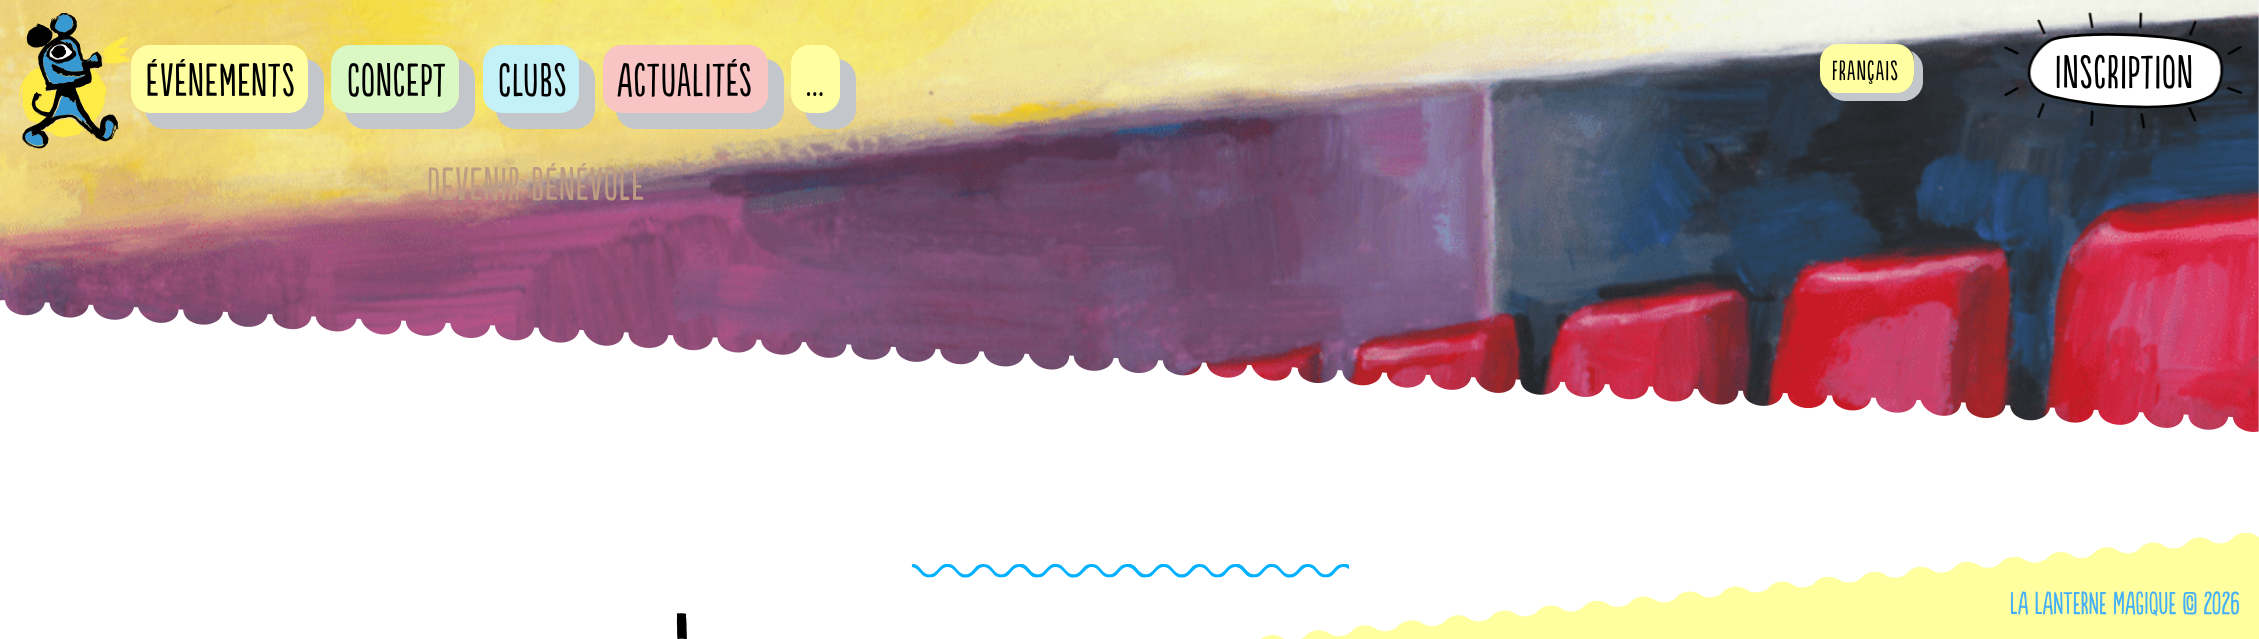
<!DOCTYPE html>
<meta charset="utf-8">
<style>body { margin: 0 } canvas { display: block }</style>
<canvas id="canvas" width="2259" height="639"></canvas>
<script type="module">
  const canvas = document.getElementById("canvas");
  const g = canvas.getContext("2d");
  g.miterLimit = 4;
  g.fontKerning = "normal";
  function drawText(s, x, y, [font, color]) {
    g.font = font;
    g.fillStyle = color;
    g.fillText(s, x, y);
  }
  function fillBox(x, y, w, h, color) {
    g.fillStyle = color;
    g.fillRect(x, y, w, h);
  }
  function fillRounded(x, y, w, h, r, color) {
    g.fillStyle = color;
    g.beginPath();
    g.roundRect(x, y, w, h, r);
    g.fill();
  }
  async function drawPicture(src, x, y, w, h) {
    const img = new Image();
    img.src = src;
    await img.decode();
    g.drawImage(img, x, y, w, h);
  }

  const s1 = ["500 43.75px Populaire", "#000000"];
  const s2 = ["500 43.75px Populaire", "#BD9C83"];
  const s3 = ["500 26px Populaire", "#000000"];
  const s4 = ["500 150px Populaire", "#000000"];

  fillBox(0, 0, 2259, 639, "#FFFFFF");
  await drawPicture("pic1.png", 0, 0, 2259, 432);
  await drawPicture("pic2.png", 0, 300, 2259, 138);
  await drawPicture("pic3.png", 19, 13, 112, 136);
  g.fillStyle = "#C3C6CA";
  g.beginPath();
  g.moveTo(145, 112);
  g.bezierCurveTo(147, 122, 155, 129, 165, 129);
  g.lineTo(304, 129);
  g.bezierCurveTo(315, 129, 324, 120, 324, 109);
  g.lineTo(324, 79);
  g.bezierCurveTo(324, 69, 317, 61, 307, 59);
  g.lineTo(308, 64);
  g.lineTo(308, 94);
  g.bezierCurveTo(308, 104, 299, 112, 289, 112);
  g.lineTo(150, 112);
  g.closePath();
  g.fill();
  fillRounded(131, 45, 177, 68, 19, "#FFFFA1");
  g.letterSpacing = "1.25px";
  drawText("événements", 146, 96, s1);
  g.fillStyle = "#C3C6CA";
  g.beginPath();
  g.moveTo(345, 112);
  g.bezierCurveTo(347, 122, 355, 129, 365, 129);
  g.lineTo(455, 129);
  g.bezierCurveTo(466, 129, 475, 120, 475, 109);
  g.lineTo(475, 79);
  g.bezierCurveTo(475, 69, 468, 61, 458, 59);
  g.lineTo(459, 64);
  g.lineTo(459, 94);
  g.bezierCurveTo(459, 104, 450, 112, 440, 112);
  g.lineTo(350, 112);
  g.closePath();
  g.fill();
  fillRounded(331, 45, 128, 68, 19, "#DAF8C4");
  drawText("Concept", 347, 96, s1);
  g.fillStyle = "#C3C6CA";
  g.beginPath();
  g.moveTo(496, 112);
  g.bezierCurveTo(498, 122, 506, 129, 516, 129);
  g.lineTo(575, 129);
  g.bezierCurveTo(586, 129, 595, 120, 595, 109);
  g.lineTo(595, 79);
  g.bezierCurveTo(595, 69, 588, 61, 578, 59);
  g.lineTo(579, 64);
  g.lineTo(579, 94);
  g.bezierCurveTo(579, 104, 570, 112, 560, 112);
  g.lineTo(501, 112);
  g.closePath();
  g.fill();
  fillRounded(483, 45, 96, 68, 19, "#C4F0F8");
  drawText("Clubs", 498, 96, s1);
  g.fillStyle = "#C3C6CA";
  g.beginPath();
  g.moveTo(616, 112);
  g.bezierCurveTo(618, 122, 626, 129, 636, 129);
  g.lineTo(764, 129);
  g.bezierCurveTo(775, 129, 784, 120, 784, 109);
  g.lineTo(784, 79);
  g.bezierCurveTo(784, 69, 777, 61, 767, 59);
  g.lineTo(768, 64);
  g.lineTo(768, 94);
  g.bezierCurveTo(768, 104, 759, 112, 749, 112);
  g.lineTo(621, 112);
  g.closePath();
  g.fill();
  fillRounded(603, 45, 165, 68, 19, "#F8C4C4");
  drawText("Actualités", 617, 96, s1);
  g.fillStyle = "#C3C6CA";
  g.beginPath();
  g.moveTo(805, 112);
  g.bezierCurveTo(807, 122, 815, 129, 825, 129);
  g.lineTo(836, 129);
  g.bezierCurveTo(847, 129, 856, 120, 856, 109);
  g.lineTo(856, 79);
  g.bezierCurveTo(856, 69, 849, 61, 839, 59);
  g.lineTo(840, 64);
  g.lineTo(840, 94);
  g.bezierCurveTo(840, 104, 832, 112, 821, 112);
  g.lineTo(810, 112);
  g.closePath();
  g.fill();
  fillRounded(791, 45, 49, 68, 19, "#FFFFA1");
  drawText("...", 806, 96, s1);
  drawText("Devenir bénévole", 427, 200, s2);
  g.fillStyle = "#C3C6CA";
  g.beginPath();
  g.moveTo(1827, 89);
  g.bezierCurveTo(1830, 96, 1837, 101, 1845, 101);
  g.lineTo(1904, 101);
  g.bezierCurveTo(1914, 101, 1923, 92, 1923, 82);
  g.lineTo(1923, 69);
  g.bezierCurveTo(1923, 61, 1918, 54, 1911, 51);
  g.bezierCurveTo(1913, 54, 1914, 57, 1914, 61);
  g.lineTo(1914, 75);
  g.bezierCurveTo(1914, 85, 1906, 92, 1896, 92);
  g.lineTo(1838, 92);
  g.bezierCurveTo(1834, 92, 1830, 91, 1827, 89);
  g.closePath();
  g.fill();
  fillRounded(1820, 44, 94, 49, 18, "#FFFFA1");
  drawText("Français", 1832, 80, s3);
  await drawPicture("pic4.png", 2003, 12, 240, 117);
  drawText("Inscription", 2055, 88, s1);
  await drawPicture("pic5.png", 911, 563, 439, 15);
  drawText("’", 672, 726, s4);
  await drawPicture("pic6.png", 1261, 533, 998, 106);
</script>
